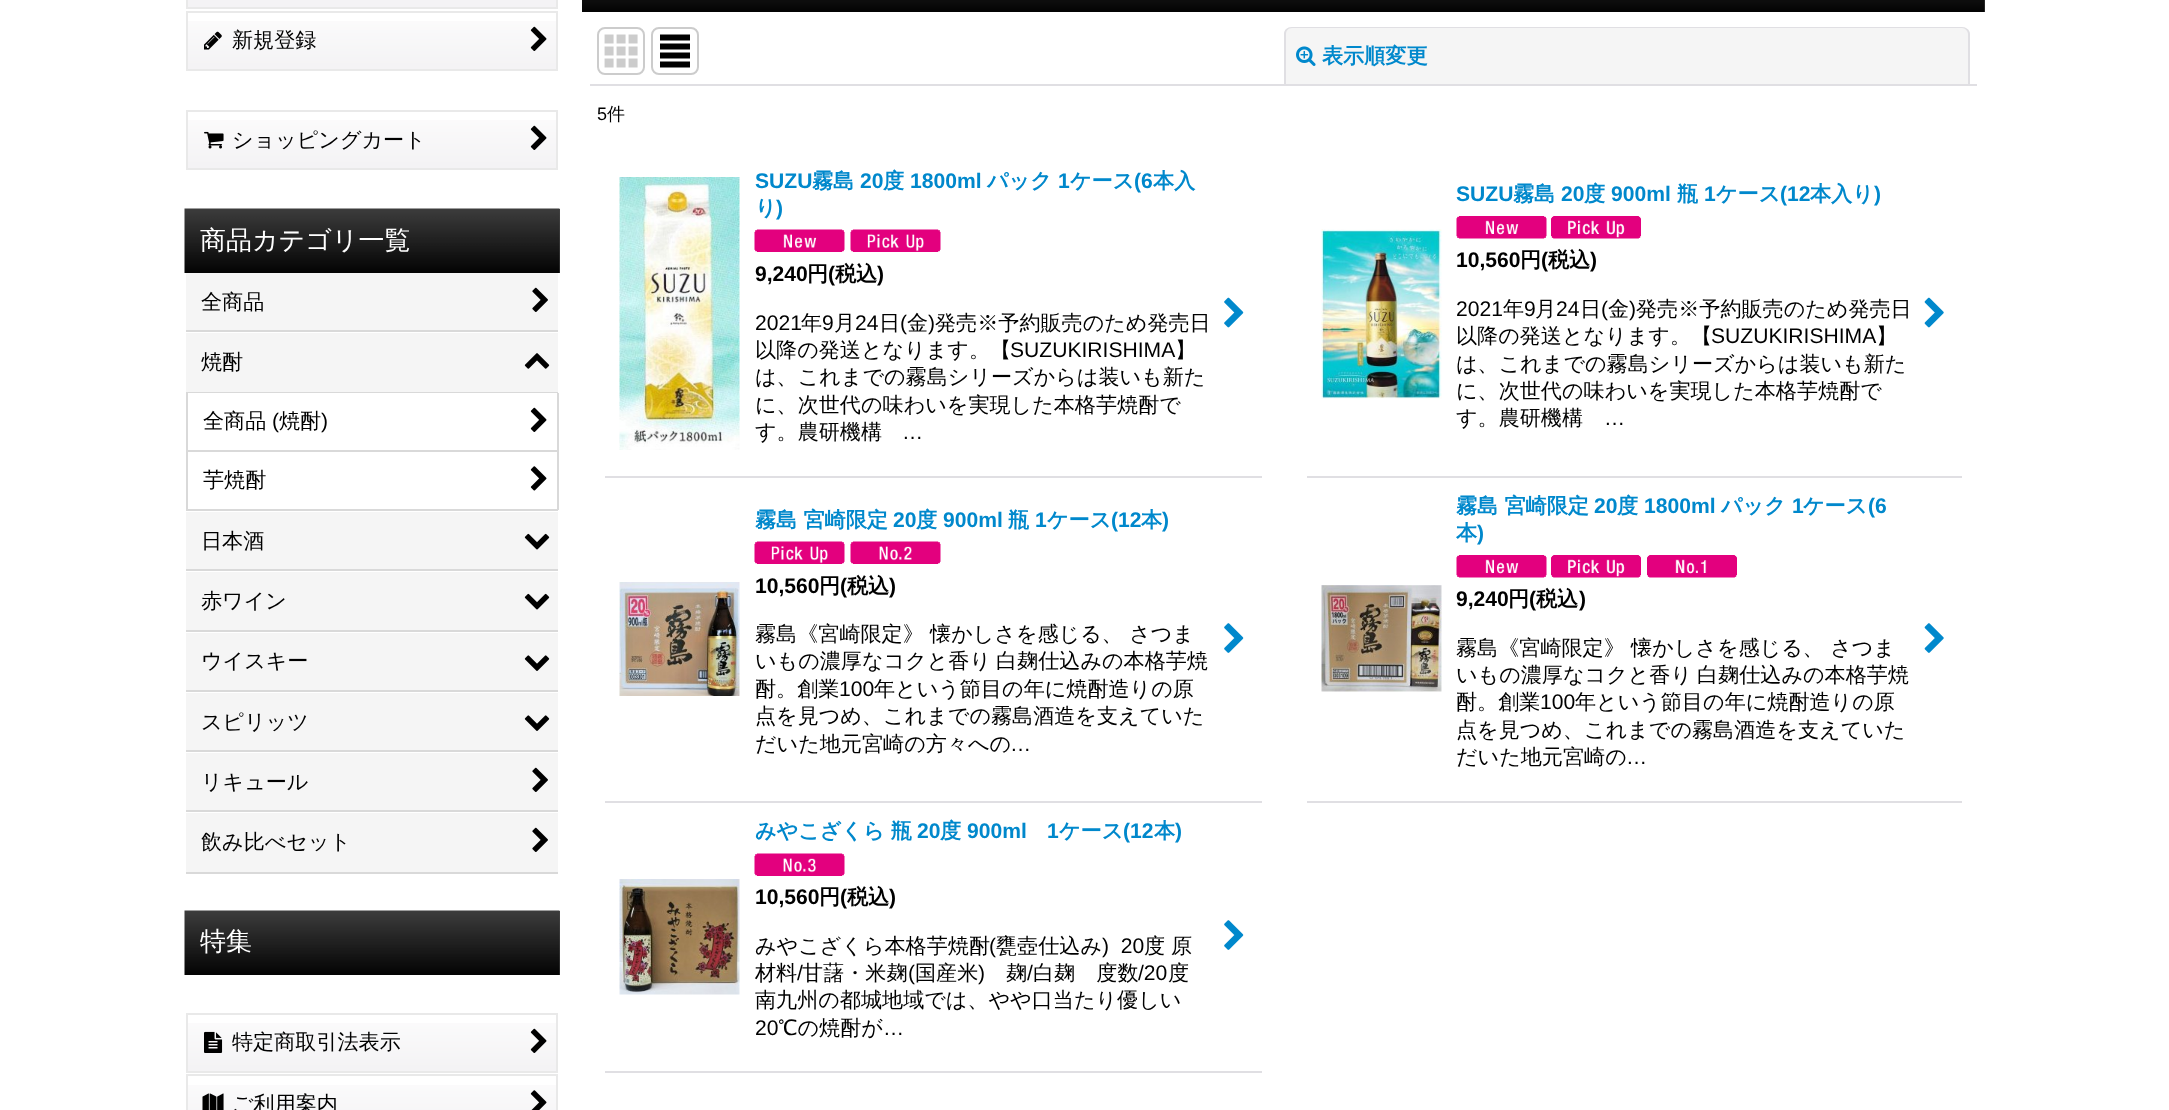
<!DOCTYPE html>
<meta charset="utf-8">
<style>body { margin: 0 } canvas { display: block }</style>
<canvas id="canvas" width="2169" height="1110"></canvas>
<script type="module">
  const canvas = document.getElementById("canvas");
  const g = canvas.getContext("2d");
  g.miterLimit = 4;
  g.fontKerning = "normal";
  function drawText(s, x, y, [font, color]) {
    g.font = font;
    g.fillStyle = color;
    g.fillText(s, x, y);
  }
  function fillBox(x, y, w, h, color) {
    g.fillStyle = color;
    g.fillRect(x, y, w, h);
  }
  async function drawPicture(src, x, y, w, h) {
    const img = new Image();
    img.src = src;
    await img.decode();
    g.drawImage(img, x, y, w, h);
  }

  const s1 = ["500 21.1px WenQuanYi Zen Hei", "#000000"];
  const s2 = ["500 26px WenQuanYi Zen Hei", "#FFFFFF"];
  const s3 = ["21.1px Liberation Sans", "#000000"];
  const s4 = ["bold 21.1px WenQuanYi Zen Hei", "#0088CC"];
  const s5 = ["18px Liberation Sans", "#000000"];
  const s6 = ["500 18px WenQuanYi Zen Hei", "#000000"];
  const s7 = ["bold 21.1px Liberation Sans", "#0088CC"];
  const s8 = ["bold 21.1px Liberation Sans", "#000000"];
  const s9 = ["bold 21.1px WenQuanYi Zen Hei", "#000000"];

  fillBox(0, 0, 2169, 1110, "#FFFFFF");
  g.fillStyle = "#F4F3F5";
  g.beginPath();
  g.rect(187, -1, 370, 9);
  g.fill();
  g.strokeStyle = "#E9E9E9";
  g.lineWidth = 2;
  g.stroke();
  await drawPicture("pic1.png", 188, 21, 368, 48);
  g.strokeRect(187, 12, 370, 58);
  await drawPicture("pic2.png", 204, 31, 18, 19);
  drawText("新規登録", 232, 47, s1);
  await drawPicture("pic3.png", 530, 26, 17, 25);
  await drawPicture("pic4.png", 188, 120, 368, 48);
  g.strokeRect(187, 111, 370, 58);
  await drawPicture("pic5.png", 204, 131, 20, 18);
  drawText("ショッピングカート", 232, 147, s1);
  await drawPicture("pic6.png", 530, 125, 17, 25);
  fillBox(559, 209, 1, 64, "#444444");
  await drawPicture("pic7.png", 184, 208, 376, 65);
  drawText("商品カテゴリ一覧", 200, 249, s2);
  fillBox(186, 273, 372, 57, "#F5F5F5");
  fillBox(186, 330, 372, 2, "#D9D9D9");
  drawText("全商品", 201, 309, s1);
  await drawPicture("pic8.png", 532, 287, 16, 25);
  fillBox(186, 333, 372, 59, "#F5F5F5");
  fillBox(186, 392, 372, 1, "#D9D9D9");
  drawText("焼酎", 201, 369, s1);
  await drawPicture("pic9.png", 524, 353, 26, 16);
  fillBox(557, 393, 2, 117, "#D9D9D9");
  fillBox(186, 450, 372, 2, "#D9D9D9");
  fillBox(186, 393, 2, 59, "#D9D9D9");
  drawText("全商品", 203, 428, s1);
  drawText("(", 272, 428, s3);
  drawText("焼酎", 279, 428, s1);
  drawText(")", 321, 428, s3);
  await drawPicture("pic10.png", 530, 407, 17, 25);
  fillBox(186, 509, 372, 2, "#D9D9D9");
  fillBox(186, 452, 2, 58, "#D9D9D9");
  drawText("芋焼酎", 203, 487, s1);
  await drawPicture("pic11.png", 530, 466, 17, 25);
  fillBox(186, 512, 372, 57, "#F5F5F5");
  fillBox(186, 569, 372, 2, "#D9D9D9");
  drawText("日本酒", 201, 548, s1);
  await drawPicture("pic12.png", 524, 533, 26, 17);
  fillBox(186, 572, 372, 58, "#F5F5F5");
  fillBox(186, 630, 372, 2, "#D9D9D9");
  drawText("赤ワイン", 201, 608, s1);
  await drawPicture("pic12.png", 524, 593, 26, 17);
  fillBox(186, 633, 372, 57, "#F5F5F5");
  fillBox(186, 690, 372, 2, "#D9D9D9");
  drawText("ウイスキー", 201, 668, s1);
  await drawPicture("pic13.png", 524, 655, 26, 16);
  fillBox(186, 693, 372, 57, "#F5F5F5");
  fillBox(186, 750, 372, 2, "#D9D9D9");
  drawText("スピリッツ", 201, 729, s1);
  await drawPicture("pic13.png", 524, 715, 26, 16);
  fillBox(186, 753, 372, 57, "#F5F5F5");
  fillBox(186, 810, 372, 2, "#D9D9D9");
  drawText("リキュール", 201, 789, s1);
  await drawPicture("pic8.png", 532, 767, 16, 25);
  fillBox(186, 813, 372, 59, "#F5F5F5");
  fillBox(186, 872, 372, 2, "#D9D9D9");
  drawText("飲み比べセット", 201, 849, s1);
  await drawPicture("pic8.png", 532, 827, 16, 25);
  fillBox(559, 911, 1, 64, "#444444");
  await drawPicture("pic14.png", 184, 910, 376, 65);
  drawText("特集", 200, 950, s2);
  await drawPicture("pic1.png", 188, 1023, 368, 48);
  g.strokeRect(187, 1014, 370, 58);
  await drawPicture("pic15.png", 204, 1031, 19, 22);
  drawText("特定商取引法表示", 232, 1049, s1);
  await drawPicture("pic3.png", 530, 1028, 17, 25);
  await drawPicture("pic16.png", 188, 1085, 368, 25);
  g.strokeRect(187, 1075, 370, 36);
  await drawPicture("pic17.png", 202, 1093, 22, 17);
  drawText("ご利用案内", 232, 1111, s1);
  await drawPicture("pic18.png", 530, 1090, 17, 20);
  fillBox(1984, 0, 1, 12, "#444444");
  await drawPicture("pic19.png", 582, 0, 1403, 12);
  fillBox(590, 84, 1387, 2, "#E0DFE3");
  g.beginPath();
  g.roundRect(598, 28, 46, 46, 7);
  g.strokeStyle = "#CCCCCC";
  g.stroke();
  await drawPicture("pic20.png", 604, 34, 34, 34);
  g.beginPath();
  g.roundRect(652, 28, 46, 46, 7);
  g.stroke();
  await drawPicture("pic21.png", 660, 34, 30, 34);
  g.fillStyle = "#F5F5F5";
  g.beginPath();
  g.roundRect(1284, 27, 686, 57, [8, 8, 0, 0]);
  g.fill();
  g.fillStyle = "#E0DFE3";
  g.beginPath();
  g.moveTo(1292, 27);
  g.lineTo(1962, 27);
  g.bezierCurveTo(1966, 27, 1970, 30, 1970, 34);
  g.lineTo(1970, 84);
  g.lineTo(1284, 84);
  g.lineTo(1284, 34);
  g.bezierCurveTo(1284, 30, 1287, 27, 1292, 27);
  g.closePath();
  g.moveTo(1292, 28);
  g.lineTo(1962, 28);
  g.bezierCurveTo(1965, 28, 1968, 31, 1968, 34);
  g.lineTo(1968, 84);
  g.lineTo(1286, 84);
  g.lineTo(1286, 34);
  g.bezierCurveTo(1286, 31, 1288, 28, 1292, 28);
  g.closePath();
  g.fill("evenodd");
  await drawPicture("pic22.png", 1296, 46, 20, 20);
  drawText("表示順変更", 1322, 63, s4);
  drawText("5", 597, 120, s5);
  drawText("件", 607, 120, s6);
  fillBox(605, 476, 657, 2, "#E0DFE3");
  await drawPicture("pic23.png", 619, 177, 121, 273);
  drawText("SUZU", 755, 188, s7);
  drawText("霧島", 812, 188, s4);
  drawText("20", 860, 188, s7);
  drawText("度", 883, 188, s4);
  drawText("1800ml", 910, 188, s7);
  drawText("パック", 987, 188, s4);
  drawText("1", 1058, 188, s7);
  drawText("ケース", 1070, 188, s4);
  drawText("(6", 1134, 188, s7);
  drawText("本入", 1153, 188, s4);
  drawText("り", 755, 215, s4);
  drawText(")", 776, 215, s7);
  await drawPicture("pic24.png", 754, 229, 91, 23);
  await drawPicture("pic25.png", 850, 229, 91, 23);
  drawText("9,240", 755, 281, s8);
  drawText("円", 807, 281, s9);
  drawText("(", 828, 281, s8);
  drawText("税込", 835, 281, s9);
  drawText(")", 877, 281, s8);
  drawText("2021", 755, 330, s3);
  drawText("年", 801, 330, s1);
  drawText("9", 822, 330, s3);
  drawText("月", 834, 330, s1);
  drawText("24", 855, 330, s3);
  drawText("日", 879, 330, s1);
  drawText("(", 900, 330, s3);
  drawText("金", 907, 330, s1);
  drawText(")", 928, 330, s3);
  drawText("発売※予約販売のため発売日", 935, 330, s1);
  drawText("以降の発送となります。【", 755, 357, s1);
  drawText("SUZUKIRISHIMA", 1010, 357, s3);
  drawText("】", 1175, 357, s1);
  drawText("は、これまでの霧島シリーズからは装いも新た", 755, 384, s1);
  drawText("に、次世代の味わいを実現した本格芋焼酎で", 755, 412, s1);
  drawText("す。農研機構", 755, 439, s1);
  drawText("…", 902, 439, s3);
  await drawPicture("pic26.png", 1224, 297, 20, 31);
  fillBox(1307, 476, 655, 2, "#E0DFE3");
  await drawPicture("pic27.png", 1321, 229, 121, 170);
  drawText("SUZU", 1456, 201, s7);
  drawText("霧島", 1513, 201, s4);
  drawText("20", 1561, 201, s7);
  drawText("度", 1584, 201, s4);
  drawText("900ml", 1611, 201, s7);
  drawText("瓶", 1677, 201, s4);
  drawText("1", 1704, 201, s7);
  drawText("ケース", 1716, 201, s4);
  drawText("(12", 1780, 201, s7);
  drawText("本入り", 1810, 201, s4);
  drawText(")", 1874, 201, s7);
  await drawPicture("pic28.png", 1456, 216, 91, 23);
  await drawPicture("pic29.png", 1551, 216, 90, 23);
  drawText("10,560", 1456, 267, s8);
  drawText("円", 1520, 267, s9);
  drawText("(", 1541, 267, s8);
  drawText("税込", 1548, 267, s9);
  drawText(")", 1590, 267, s8);
  drawText("2021", 1456, 316, s3);
  drawText("年", 1503, 316, s1);
  drawText("9", 1524, 316, s3);
  drawText("月", 1535, 316, s1);
  drawText("24", 1556, 316, s3);
  drawText("日", 1580, 316, s1);
  drawText("(", 1601, 316, s3);
  drawText("金", 1608, 316, s1);
  drawText(")", 1629, 316, s3);
  drawText("発売※予約販売のため発売日", 1636, 316, s1);
  drawText("以降の発送となります。【", 1456, 343, s1);
  drawText("SUZUKIRISHIMA", 1711, 343, s3);
  drawText("】", 1876, 343, s1);
  drawText("は、これまでの霧島シリーズからは装いも新た", 1456, 371, s1);
  drawText("に、次世代の味わいを実現した本格芋焼酎で", 1456, 398, s1);
  drawText("す。農研機構", 1456, 425, s1);
  drawText("…", 1604, 425, s3);
  await drawPicture("pic30.png", 1924, 297, 20, 31);
  fillBox(605, 801, 657, 2, "#E0DFE3");
  await drawPicture("pic31.png", 619, 582, 121, 114);
  drawText("霧島 宮崎限定", 755, 527, s4);
  drawText("20", 893, 527, s7);
  drawText("度", 916, 527, s4);
  drawText("900ml", 943, 527, s7);
  drawText("瓶", 1008, 527, s4);
  drawText("1", 1035, 527, s7);
  drawText("ケース", 1047, 527, s4);
  drawText("(12", 1111, 527, s7);
  drawText("本", 1141, 527, s4);
  drawText(")", 1162, 527, s7);
  await drawPicture("pic25.png", 754, 541, 91, 23);
  await drawPicture("pic32.png", 850, 541, 91, 23);
  drawText("10,560", 755, 593, s8);
  drawText("円", 819, 593, s9);
  drawText("(", 840, 593, s8);
  drawText("税込", 847, 593, s9);
  drawText(")", 889, 593, s8);
  drawText("霧島《宮崎限定》 懐かしさを感じる、 さつま", 755, 641, s1);
  drawText("いもの濃厚なコクと香り", 755, 668, s1);
  drawText("白麹仕込みの本格芋焼", 996, 668, s1);
  drawText("酎。創業", 755, 696, s1);
  drawText("100", 839, 696, s3);
  drawText("年という節目の年に焼酎造りの原", 874, 696, s1);
  drawText("点を見つめ、これまでの霧島酒造を支えていた", 755, 723, s1);
  drawText("だいた地元宮崎の方々への", 755, 751, s1);
  drawText("…", 1010, 751, s3);
  await drawPicture("pic33.png", 1224, 623, 20, 30);
  fillBox(1307, 801, 655, 2, "#E0DFE3");
  await drawPicture("pic34.png", 1321, 585, 121, 107);
  drawText("霧島 宮崎限定", 1456, 513, s4);
  drawText("20", 1594, 513, s7);
  drawText("度", 1617, 513, s4);
  drawText("1800ml", 1644, 513, s7);
  drawText("パック", 1721, 513, s4);
  drawText("1", 1792, 513, s7);
  drawText("ケース", 1803, 513, s4);
  drawText("(6", 1868, 513, s7);
  drawText("本", 1456, 540, s4);
  drawText(")", 1477, 540, s7);
  await drawPicture("pic28.png", 1456, 555, 91, 23);
  await drawPicture("pic29.png", 1551, 555, 90, 23);
  await drawPicture("pic35.png", 1647, 555, 90, 23);
  drawText("9,240", 1456, 606, s8);
  drawText("円", 1508, 606, s9);
  drawText("(", 1529, 606, s8);
  drawText("税込", 1536, 606, s9);
  drawText(")", 1579, 606, s8);
  drawText("霧島《宮崎限定》 懐かしさを感じる、 さつま", 1456, 655, s1);
  drawText("いもの濃厚なコクと香り", 1456, 682, s1);
  drawText("白麹仕込みの本格芋焼", 1697, 682, s1);
  drawText("酎。創業", 1456, 709, s1);
  drawText("100", 1540, 709, s3);
  drawText("年という節目の年に焼酎造りの原", 1575, 709, s1);
  drawText("点を見つめ、これまでの霧島酒造を支えていた", 1456, 737, s1);
  drawText("だいた地元宮崎の", 1456, 764, s1);
  drawText("…", 1626, 764, s3);
  await drawPicture("pic36.png", 1924, 623, 20, 30);
  fillBox(605, 1071, 657, 2, "#E0DFE3");
  await drawPicture("pic37.png", 619, 879, 121, 116);
  drawText("みやこざくら 瓶", 755, 838, s4);
  drawText("20", 917, 838, s7);
  drawText("度", 940, 838, s4);
  drawText("900ml", 967, 838, s7);
  drawText("1", 1047, 838, s7);
  drawText("ケース", 1059, 838, s4);
  drawText("(12", 1123, 838, s7);
  drawText("本", 1154, 838, s4);
  drawText(")", 1175, 838, s7);
  await drawPicture("pic38.png", 754, 853, 91, 23);
  drawText("10,560", 755, 904, s8);
  drawText("円", 819, 904, s9);
  drawText("(", 840, 904, s8);
  drawText("税込", 847, 904, s9);
  drawText(")", 889, 904, s8);
  drawText("みやこざくら本格芋焼酎", 755, 953, s1);
  drawText("(", 989, 953, s3);
  drawText("甕壺仕込み", 996, 953, s1);
  drawText(")  20", 1102, 953, s3);
  drawText("度", 1144, 953, s1);
  drawText("原", 1171, 953, s1);
  drawText("材料", 755, 980, s1);
  drawText("/", 797, 980, s3);
  drawText("甘藷・米麹", 802, 980, s1);
  drawText("(", 908, 980, s3);
  drawText("国産米", 915, 980, s1);
  drawText(")", 978, 980, s3);
  drawText("麹", 1006, 980, s1);
  drawText("/", 1027, 980, s3);
  drawText("白麹　度数", 1033, 980, s1);
  drawText("/20", 1138, 980, s3);
  drawText("度", 1168, 980, s1);
  drawText("南九州の都城地域では、やや口当たり優しい", 755, 1007, s1);
  drawText("20", 755, 1035, s3);
  drawText("℃の焼酎が", 778, 1035, s1);
  drawText("…", 883, 1035, s3);
  await drawPicture("pic33.png", 1224, 920, 20, 30);
</script>
